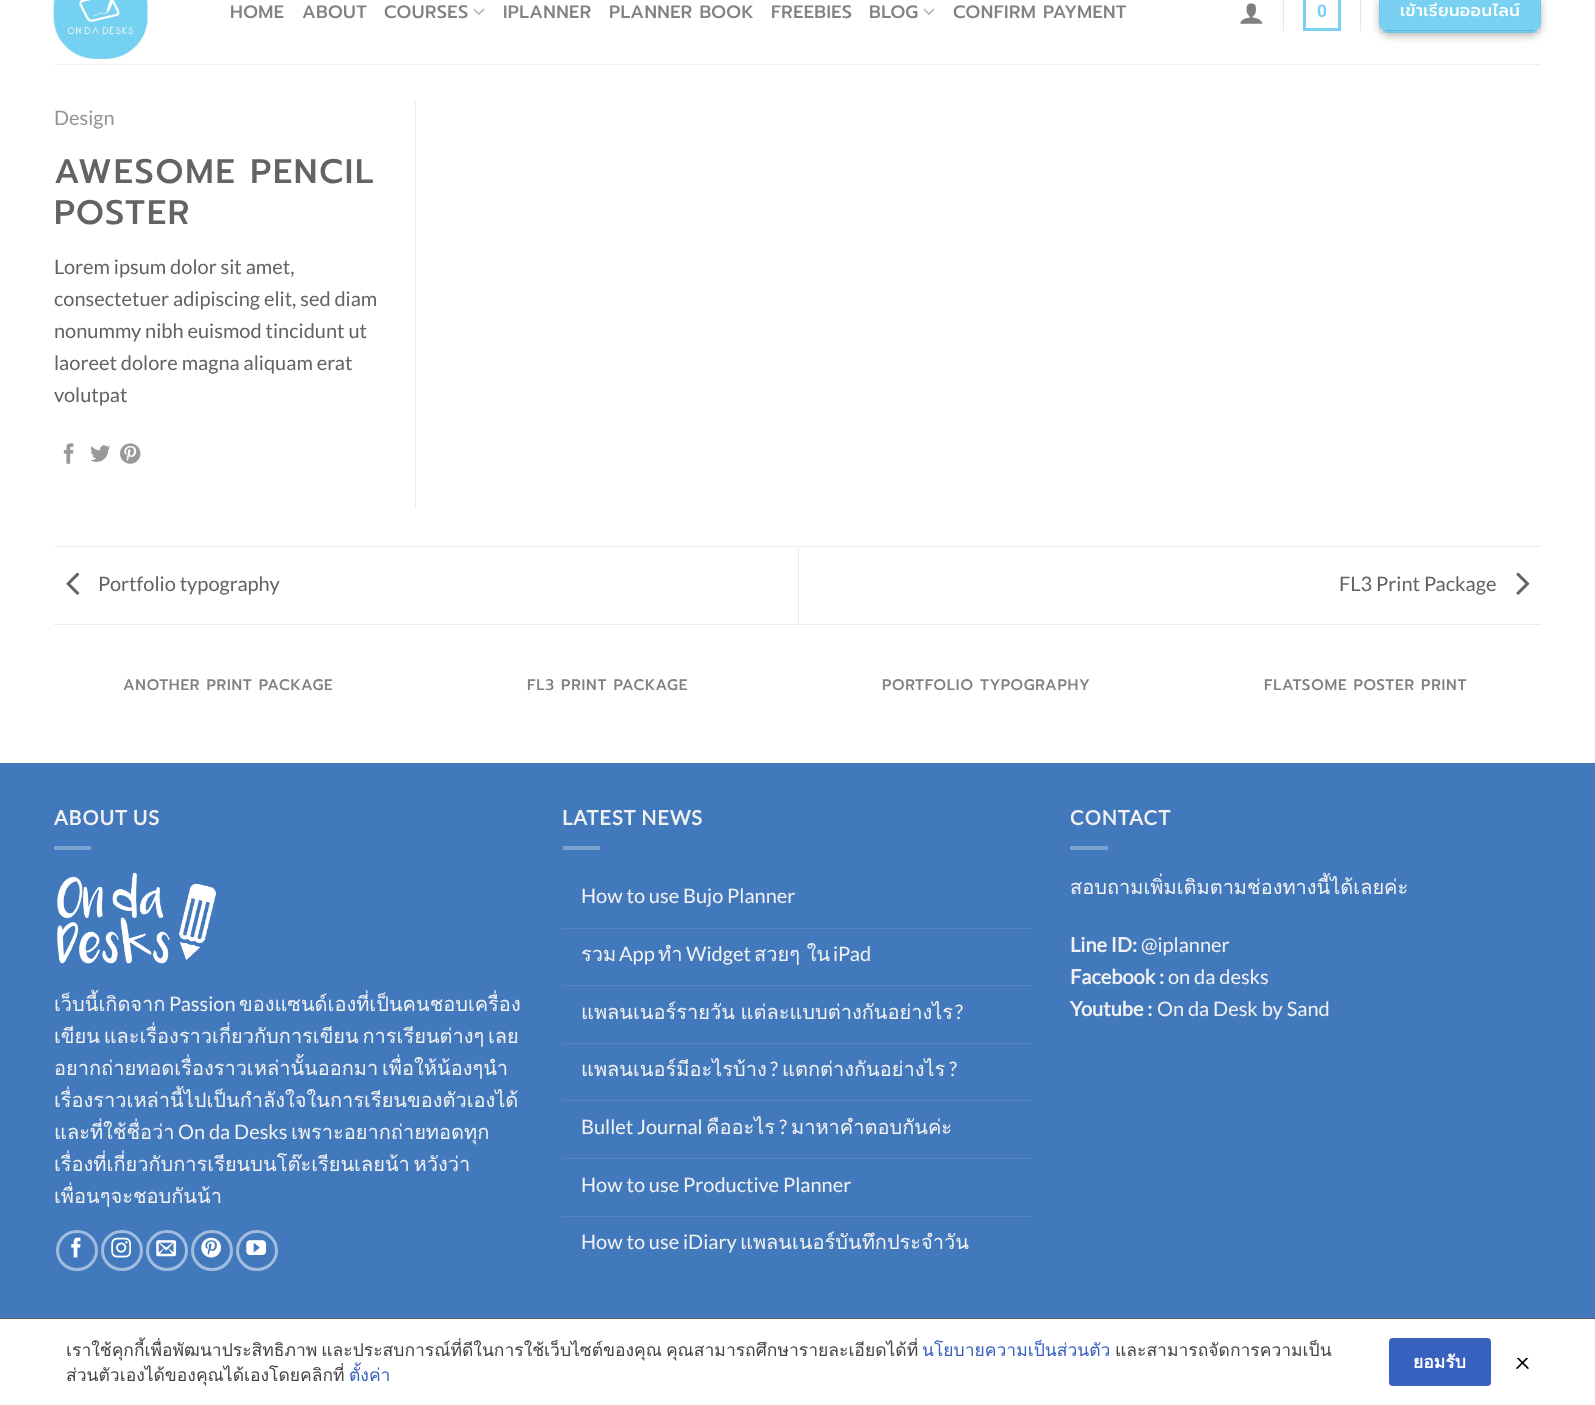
<!DOCTYPE html>
<meta charset="utf-8">
<style>body { margin: 0 } canvas { display: block }</style>
<canvas id="canvas" width="1595" height="1405"></canvas>
<script type="module">
  const canvas = document.getElementById("canvas");
  const g = canvas.getContext("2d");
  g.miterLimit = 4;
  g.fontKerning = "normal";
  function drawText(s, x, y, [font, color]) {
    g.font = font;
    g.fillStyle = color;
    g.fillText(s, x, y);
  }
  function fillBox(x, y, w, h, color) {
    g.fillStyle = color;
    g.fillRect(x, y, w, h);
  }
  function fillRounded(x, y, w, h, r, color) {
    g.fillStyle = color;
    g.beginPath();
    g.roundRect(x, y, w, h, r);
    g.fill();
  }
  async function drawPicture(src, x, y, w, h) {
    const img = new Image();
    img.src = src;
    await img.decode();
    g.drawImage(img, x, y, w, h);
  }

  const s1 = ["500 18px Prompt", "#828282"];
  const s2 = ["bold 18px Liberation Sans", "#78D1F1"];
  const s3 = ["500 16.5px Prompt", "#FFFFFF"];
  const s4 = ["20px Lato", "#949494"];
  const s5 = ["500 34px Prompt", "#636363"];
  const s6 = ["20px Lato", "#636363"];
  const s7 = ["500 15.25px Prompt", "#828282"];
  const s8 = ["bold 20px Lato", "#F1F1F1"];
  const s9 = ["20px Loma", "#F1F1F1"];
  const s10 = ["20px Lato", "#F1F1F1"];
  const s11 = ["17.5px Loma", "#444444"];
  const s12 = ["17.5px Loma", "#3860BE"];
  const s13 = ["bold 17.5px Loma", "#FFFFFF"];

  fillBox(0, 0, 1595, 1405, "#FFFFFF");
  await drawPicture("pic1.png", 53, 0, 95, 59);
  g.letterSpacing = "0.4px";
  drawText("HOME", 230, 18, s1);
  drawText("ABOUT", 302, 18, s1);
  drawText("COURSES", 384, 18, s1);
  await drawPicture("pic2.png", 473, 8, 12, 7);
  drawText("IPLANNER", 503, 18, s1);
  drawText("PLANNER BOOK", 609, 18, s1);
  drawText("FREEBIES", 771, 18, s1);
  drawText("BLOG", 869, 18, s1);
  await drawPicture("pic2.png", 923, 8, 12, 7);
  drawText("CONFIRM PAYMENT", 953, 18, s1);
  await drawPicture("pic3.png", 1240, 3, 23, 21);
  fillBox(1283, 0, 1, 31, "#E6E6E6");
  g.strokeStyle = "#78D1F1";
  g.lineWidth = 3;
  g.strokeRect(1304.5, -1.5, 35, 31);
  drawText("0", 1317, 17, s2);
  fillBox(1360, 0, 1, 31, "#E6E6E6");
  g.fillStyle = "rgba(0, 0, 0, 0.23)";
  g.filter = "blur(4px)";
  g.beginPath();
  g.roundRect(1379, -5, 162, 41, 10);
  g.fill();
  g.filter = "none";
  g.fillStyle = "rgba(0, 0, 0, 0.16)";
  g.filter = "blur(4px)";
  g.beginPath();
  g.roundRect(1384, 0, 152, 31, 5);
  g.fill();
  g.filter = "none";
  fillRounded(1379, -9, 162, 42, 10, "#78D1F1");
  g.strokeStyle = "rgba(0, 0, 0, 0.05)";
  g.lineWidth = 1;
  g.strokeRect(1379.5, -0.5, 161, 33);
  g.letterSpacing = "0.5px";
  drawText("เข้าเรียนออนไลน์", 1400, 16, s3);
  g.fillStyle = "#66B2CD";
  g.beginPath();
  g.moveTo(1385, 30);
  g.bezierCurveTo(1386, 31, 1388, 31, 1389, 31);
  g.lineTo(1531, 31);
  g.bezierCurveTo(1532, 31, 1534, 31, 1535, 30);
  g.closePath();
  g.fill();
  fillBox(54, 64, 1487, 1, "#EFEFEF");
  fillBox(415, 101, 1, 408, "#ECECEC");
  g.letterSpacing = "0px";
  drawText("Design", 54, 125, s4);
  g.letterSpacing = "1.75px";
  drawText("AWESOME PENCIL", 54, 183, s5);
  drawText("POSTER", 54, 224, s5);
  g.letterSpacing = "0px";
  drawText("Lorem ipsum dolor sit amet,", 54, 274, s6);
  drawText("consectetuer adipiscing elit, sed diam", 54, 306, s6);
  drawText("nonummy nibh euismod tincidunt ut", 54, 338, s6);
  drawText("laoreet dolore magna aliquam erat", 54, 370, s6);
  drawText("volutpat", 54, 402, s6);
  await drawPicture("pic4.png", 63, 443, 11, 21);
  await drawPicture("pic5.png", 90, 445, 21, 17);
  await drawPicture("pic6.png", 120, 443, 21, 21);
  fillBox(54, 546, 1487, 1, "#ECECEC");
  fillBox(54, 624, 1487, 1, "#ECECEC");
  await drawPicture("pic7.png", 66, 572, 14, 23);
  drawText("Portfolio typography", 98, 591, s6);
  fillBox(798, 548, 1, 76, "#ECECEC");
  drawText("FL3 Print Package", 1339, 591, s6);
  await drawPicture("pic8.png", 1516, 572, 14, 23);
  g.letterSpacing = "0.75px";
  drawText("ANOTHER PRINT PACKAGE", 123, 690, s7);
  drawText("FL3 PRINT PACKAGE", 527, 690, s7);
  drawText("PORTFOLIO TYPOGRAPHY", 882, 690, s7);
  drawText("FLATSOME POSTER PRINT", 1264, 690, s7);
  fillBox(0, 764, 1595, 554, "#4279BD");
  fillBox(0, 763, 1595, 1, "#3F73B4");
  g.letterSpacing = "1px";
  drawText("ABOUT US", 54, 825, s8);
  fillBox(54, 846, 37, 4, "#7BA1D1");
  await drawPicture("pic9.png", 57, 872, 160, 92);
  g.letterSpacing = "0px";
  drawText("เว็บนี้เกิดจาก", 54, 1011, s9);
  drawText("Passion", 169, 1011, s10);
  drawText("ของแซนด์เองที่เป็นคนชอบเครื่อง", 239, 1011, s9);
  g.wordSpacing = "-3px";
  drawText("เขียน และเรื่องราวเกี่ยวกับการเขียน การเรียนต่างๆ เลย", 54, 1043, s9);
  drawText("อยากถ่ายทอดเรื่องราวเหล่านั้นออกมา เพื่อให้น้องๆนำ", 54, 1075, s9);
  g.wordSpacing = "0px";
  drawText("เรื่องราวเหล่านี้ไปเป็นกำลังใจในการเรียนของตัวเองได้", 54, 1107, s9);
  drawText("และที่ใช้ชื่อว่า", 54, 1139, s9);
  drawText("On da Desks", 178, 1139, s10);
  drawText("เพราะอยากถ่ายทอดทุก", 291, 1139, s9);
  g.wordSpacing = "-3px";
  drawText("เรื่องที่เกี่ยวกับการเรียนบนโต๊ะเรียนเลยน้า หวังว่า", 54, 1171, s9);
  g.wordSpacing = "0px";
  drawText("เพื่อนๆจะชอบกันน้า", 54, 1203, s9);
  g.beginPath();
  g.roundRect(57.5, 1231.5, 39, 38, 19);
  g.strokeStyle = "#A1BCDE";
  g.lineWidth = 3;
  g.stroke();
  await drawPicture("pic10.png", 71, 1237, 10, 21);
  g.beginPath();
  g.roundRect(102.5, 1231.5, 39, 38, 19);
  g.stroke();
  await drawPicture("pic11.png", 111, 1237, 20, 21);
  g.beginPath();
  g.roundRect(147.5, 1231.5, 39, 38, 19);
  g.stroke();
  await drawPicture("pic12.png", 156, 1240, 21, 17);
  g.beginPath();
  g.roundRect(192.5, 1231.5, 39, 38, 19);
  g.stroke();
  await drawPicture("pic13.png", 201, 1237, 20, 21);
  g.beginPath();
  g.roundRect(237.5, 1231.5, 39, 38, 19);
  g.stroke();
  await drawPicture("pic14.png", 246, 1240, 21, 15);
  g.letterSpacing = "1px";
  drawText("LATEST NEWS", 562, 825, s8);
  fillBox(563, 846, 37, 4, "#7BA1D1");
  g.letterSpacing = "0px";
  drawText("How to use Bujo Planner", 581, 903, s10);
  fillBox(563, 928, 470, 1, "#5184C2");
  drawText("รวม", 581, 961, s9);
  drawText("App", 619, 961, s10);
  drawText("ทำ", 658, 961, s9);
  drawText("Widget", 686, 961, s10);
  drawText("สวยๆ ใน", 754, 961, s9);
  drawText("iPad", 833, 961, s10);
  fillBox(563, 985, 470, 1, "#5184C2");
  g.wordSpacing = "-1px";
  drawText("แพลนเนอร์รายวัน แต่ละแบบต่างกันอย่างไร", 581, 1019, s9);
  g.wordSpacing = "0px";
  drawText("?", 955, 1019, s10);
  fillBox(563, 1043, 470, 1, "#5184C2");
  drawText("แพลนเนอร์มีอะไรบ้าง", 581, 1076, s9);
  drawText("?", 770, 1076, s10);
  drawText("แตกต่างกันอย่างไร", 782, 1076, s9);
  drawText("?", 949, 1076, s10);
  fillBox(563, 1100, 470, 1, "#5184C2");
  drawText("Bullet Journal", 581, 1134, s10);
  drawText("คืออะไร", 706, 1134, s9);
  drawText("?", 779, 1134, s10);
  drawText("มาหาคำตอบกันค่ะ", 791, 1134, s9);
  fillBox(563, 1158, 470, 1, "#5184C2");
  drawText("How to use Productive Planner", 581, 1192, s10);
  fillBox(563, 1216, 470, 1, "#5184C2");
  drawText("How to use iDiary", 581, 1249, s10);
  drawText("แพลนเนอร์บันทึกประจำวัน", 740, 1249, s9);
  g.letterSpacing = "1px";
  drawText("CONTACT", 1070, 825, s8);
  fillBox(1070, 846, 38, 4, "#7BA1D1");
  g.letterSpacing = "0px";
  drawText("สอบถามเพิ่มเติมตามช่องทางนี้ได้เลยค่ะ", 1070, 894, s9);
  drawText("Line ID:", 1070, 952, s8);
  drawText("@iplanner", 1141, 952, s10);
  drawText("Facebook :", 1070, 984, s8);
  drawText("on da desks", 1168, 984, s10);
  drawText("Youtube :", 1070, 1016, s8);
  drawText("On da Desk by Sand", 1157, 1016, s10);
  fillBox(0, 1318, 1595, 1, "#5B5B5B");
  g.wordSpacing = "-2px";
  drawText("เราใช้คุกกี้เพื่อพัฒนาประสิทธิภาพ และประสบการณ์ที่ดีในการใช้เว็บไซต์ของคุณ คุณสามารถศึกษารายละเอียดได้ที่", 66, 1356, s11);
  g.wordSpacing = "0px";
  drawText("นโยบายความเป็นส่วนตัว", 922, 1356, s12);
  drawText("และสามารถจัดการความเป็น", 1115, 1356, s11);
  drawText("ส่วนตัวเองได้ของคุณได้เองโดยคลิกที่", 66, 1381, s11);
  drawText("ตั้งค่า", 349, 1381, s12);
  fillRounded(1389, 1338, 102, 48, 4, "#3860BE");
  drawText("ยอมรับ", 1413, 1368, s13);
  await drawPicture("pic15.png", 1516, 1358, 13, 11);
</script>
